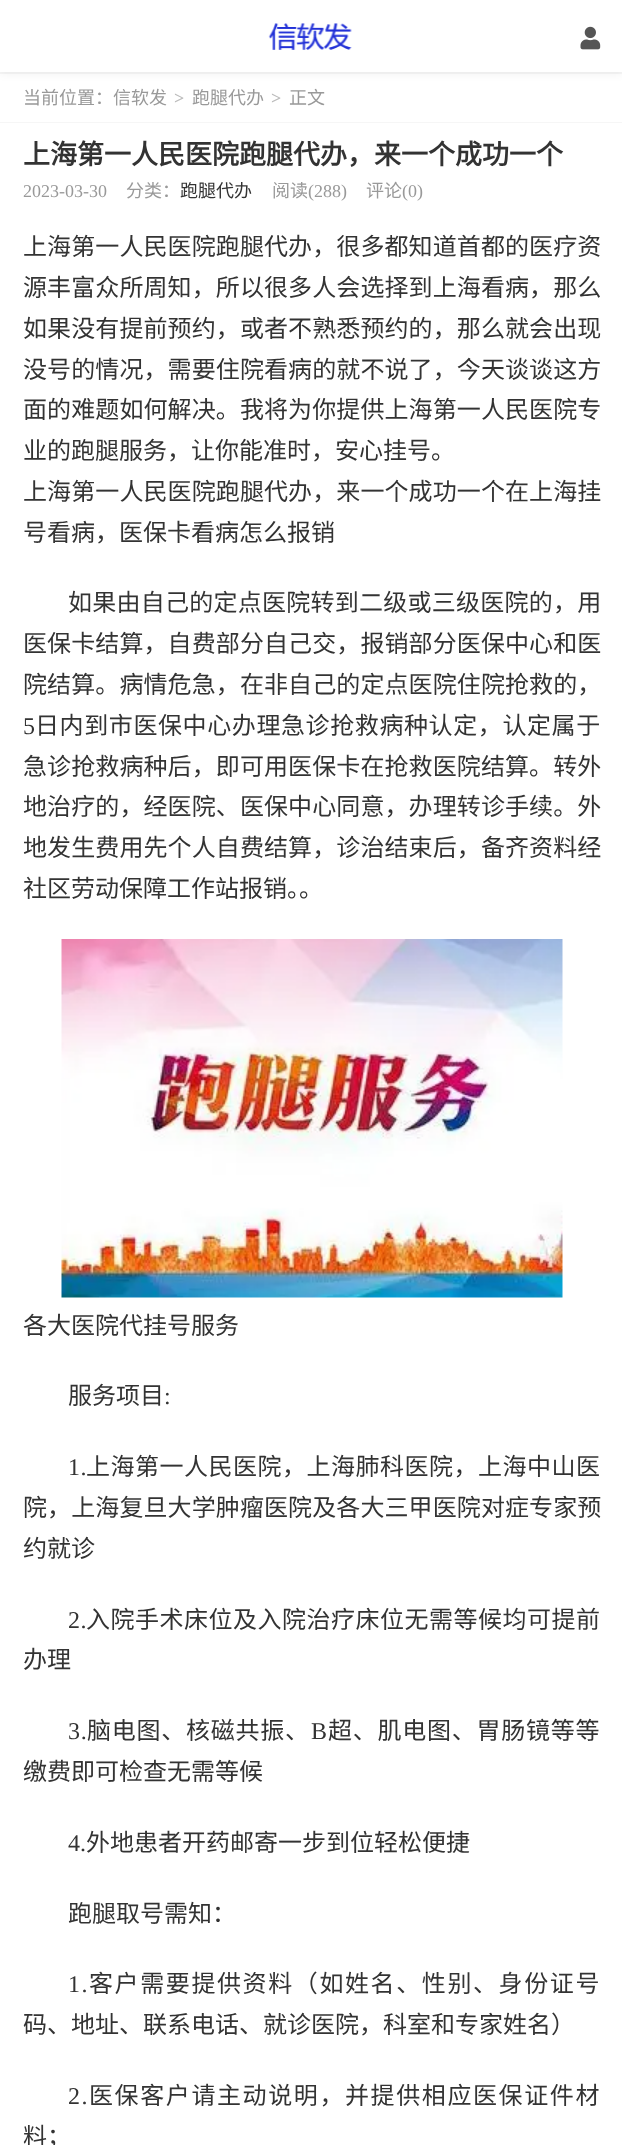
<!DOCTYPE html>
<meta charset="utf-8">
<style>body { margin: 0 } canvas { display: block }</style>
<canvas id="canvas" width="622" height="2145"></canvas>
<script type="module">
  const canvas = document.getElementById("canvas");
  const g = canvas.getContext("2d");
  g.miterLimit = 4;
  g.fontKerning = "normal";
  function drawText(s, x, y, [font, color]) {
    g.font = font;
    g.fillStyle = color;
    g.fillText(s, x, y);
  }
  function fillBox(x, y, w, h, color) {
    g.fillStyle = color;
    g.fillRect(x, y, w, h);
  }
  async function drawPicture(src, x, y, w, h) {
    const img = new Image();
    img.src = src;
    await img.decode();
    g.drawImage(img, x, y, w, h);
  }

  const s1 = ["18px Noto Sans CJK SC", "#999999"];
  const s2 = ["bold 18px Liberation Serif", "#BBBBBB"];
  const s3 = ["bold 27px Noto Sans CJK SC", "#333333"];
  const s4 = ["18px Liberation Serif", "#999999"];
  const s5 = ["18px Noto Sans CJK SC", "#333333"];
  const s6 = ["24px Noto Sans CJK SC", "#333333"];
  const s7 = ["24px Liberation Serif", "#333333"];

  fillBox(0, 0, 622, 2145, "#F6F6F6");
  fillBox(0, 74, 622, 48, "#FFFFFF");
  g.fillStyle = "rgba(0, 0, 0, 0.05)";
  g.filter = "blur(4px)";
  g.beginPath();
  g.rect(0, 2, 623, 72);
  g.fill();
  g.filter = "none";
  fillBox(0, 0, 622, 72, "#FFFFFF");
  await drawPicture("pic1.png", 268, 23, 84, 27);
  await drawPicture("pic2.png", 580, 26, 21, 24);
  drawText("当前位置：信软发", 23, 104, s1);
  drawText(">", 174, 104, s2);
  drawText("跑腿代办", 192, 104, s1);
  drawText(">", 271, 104, s2);
  drawText("正文", 289, 104, s1);
  fillBox(0, 123, 622, 2022, "#FFFFFF");
  drawText("上海第一人民医院跑腿代办，来一个成功一个", 23, 164, s3);
  drawText("2023-03-30", 23, 197, s4);
  drawText("分类：", 126, 197, s1);
  drawText("跑腿代办", 180, 197, s5);
  drawText("阅读", 272, 197, s1);
  drawText("(288)", 308, 197, s4);
  drawText("评论", 366, 197, s1);
  drawText("(0)", 402, 197, s4);
  g.letterSpacing = "0.1px";
  drawText("上海第一人民医院跑腿代办，很多都知道首都的医疗资", 23, 255, s6);
  drawText("源丰富众所周知，所以很多人会选择到上海看病，那么", 23, 296, s6);
  drawText("如果没有提前预约，或者不熟悉预约的，那么就会出现", 23, 337, s6);
  drawText("没号的情况，需要住院看病的就不说了，今天谈谈这方", 23, 378, s6);
  drawText("面的难题如何解决。我将为你提供上海第一人民医院专", 23, 418, s6);
  g.letterSpacing = "0px";
  drawText("业的跑腿服务，让你能准时，安心挂号。", 23, 459, s6);
  g.letterSpacing = "0.1px";
  drawText("上海第一人民医院跑腿代办，来一个成功一个在上海挂", 23, 500, s6);
  g.letterSpacing = "0px";
  drawText("号看病，医保卡看病怎么报销", 23, 541, s6);
  g.letterSpacing = "0.25px";
  drawText("如果由自己的定点医院转到二级或三级医院的，用", 68, 611, s6);
  g.letterSpacing = "0.1px";
  drawText("医保卡结算，自费部分自己交，报销部分医保中心和医", 23, 652, s6);
  drawText("院结算。病情危急，在非自己的定点医院住院抢救的，", 23, 693, s6);
  g.letterSpacing = "0.6px";
  drawText("5", 23, 734, s7);
  drawText("日内到市医保中心办理急诊抢救病种认定，认定属于", 35, 734, s6);
  g.letterSpacing = "0.1px";
  drawText("急诊抢救病种后，即可用医保卡在抢救医院结算。转外", 23, 775, s6);
  drawText("地治疗的，经医院、医保中心同意，办理转诊手续。外", 23, 815, s6);
  drawText("地发生费用先个人自费结算，诊治结束后，备齐资料经", 23, 856, s6);
  g.letterSpacing = "0px";
  drawText("社区劳动保障工作站报销。。", 23, 897, s6);
  await drawPicture("pic3.png", 61, 939, 502, 359);
  drawText("各大医院代挂号服务", 23, 1334, s6);
  drawText("服务项目", 68, 1404, s6);
  drawText(":", 164, 1404, s7);
  g.letterSpacing = "0.5px";
  drawText("1.", 68, 1475, s7);
  drawText("上海第一人民医院，上海肺科医院，上海中山医", 86, 1475, s6);
  g.letterSpacing = "0.1px";
  drawText("院，上海复旦大学肿瘤医院及各大三甲医院对症专家预", 23, 1516, s6);
  g.letterSpacing = "0px";
  drawText("约就诊", 23, 1557, s6);
  g.letterSpacing = "0.5px";
  drawText("2.", 68, 1628, s7);
  drawText("入院手术床位及入院治疗床位无需等候均可提前", 86, 1628, s6);
  g.letterSpacing = "0px";
  drawText("办理", 23, 1668, s6);
  g.letterSpacing = "0.75px";
  drawText("3.", 68, 1739, s7);
  drawText("脑电图、核磁共振、", 87, 1739, s6);
  drawText("B", 311, 1739, s7);
  drawText("超、肌电图、胃肠镜等等", 328, 1739, s6);
  g.letterSpacing = "0px";
  drawText("缴费即可检查无需等候", 23, 1780, s6);
  drawText("4.", 68, 1851, s7);
  drawText("外地患者开药邮寄一步到位轻松便捷", 86, 1851, s6);
  drawText("跑腿取号需知：", 68, 1922, s6);
  g.letterSpacing = "1.6px";
  drawText("1.", 68, 1992, s7);
  drawText("客户需要提供资料（如姓名、性别、身份证号", 89, 1992, s6);
  g.letterSpacing = "0px";
  drawText("码、地址、联系电话、就诊医院，科室和专家姓名）", 23, 2033, s6);
  g.letterSpacing = "1.6px";
  drawText("2.", 68, 2104, s7);
  drawText("医保客户请主动说明，并提供相应医保证件材", 89, 2104, s6);
  g.letterSpacing = "0px";
  drawText("料；", 23, 2145, s6);
</script>
